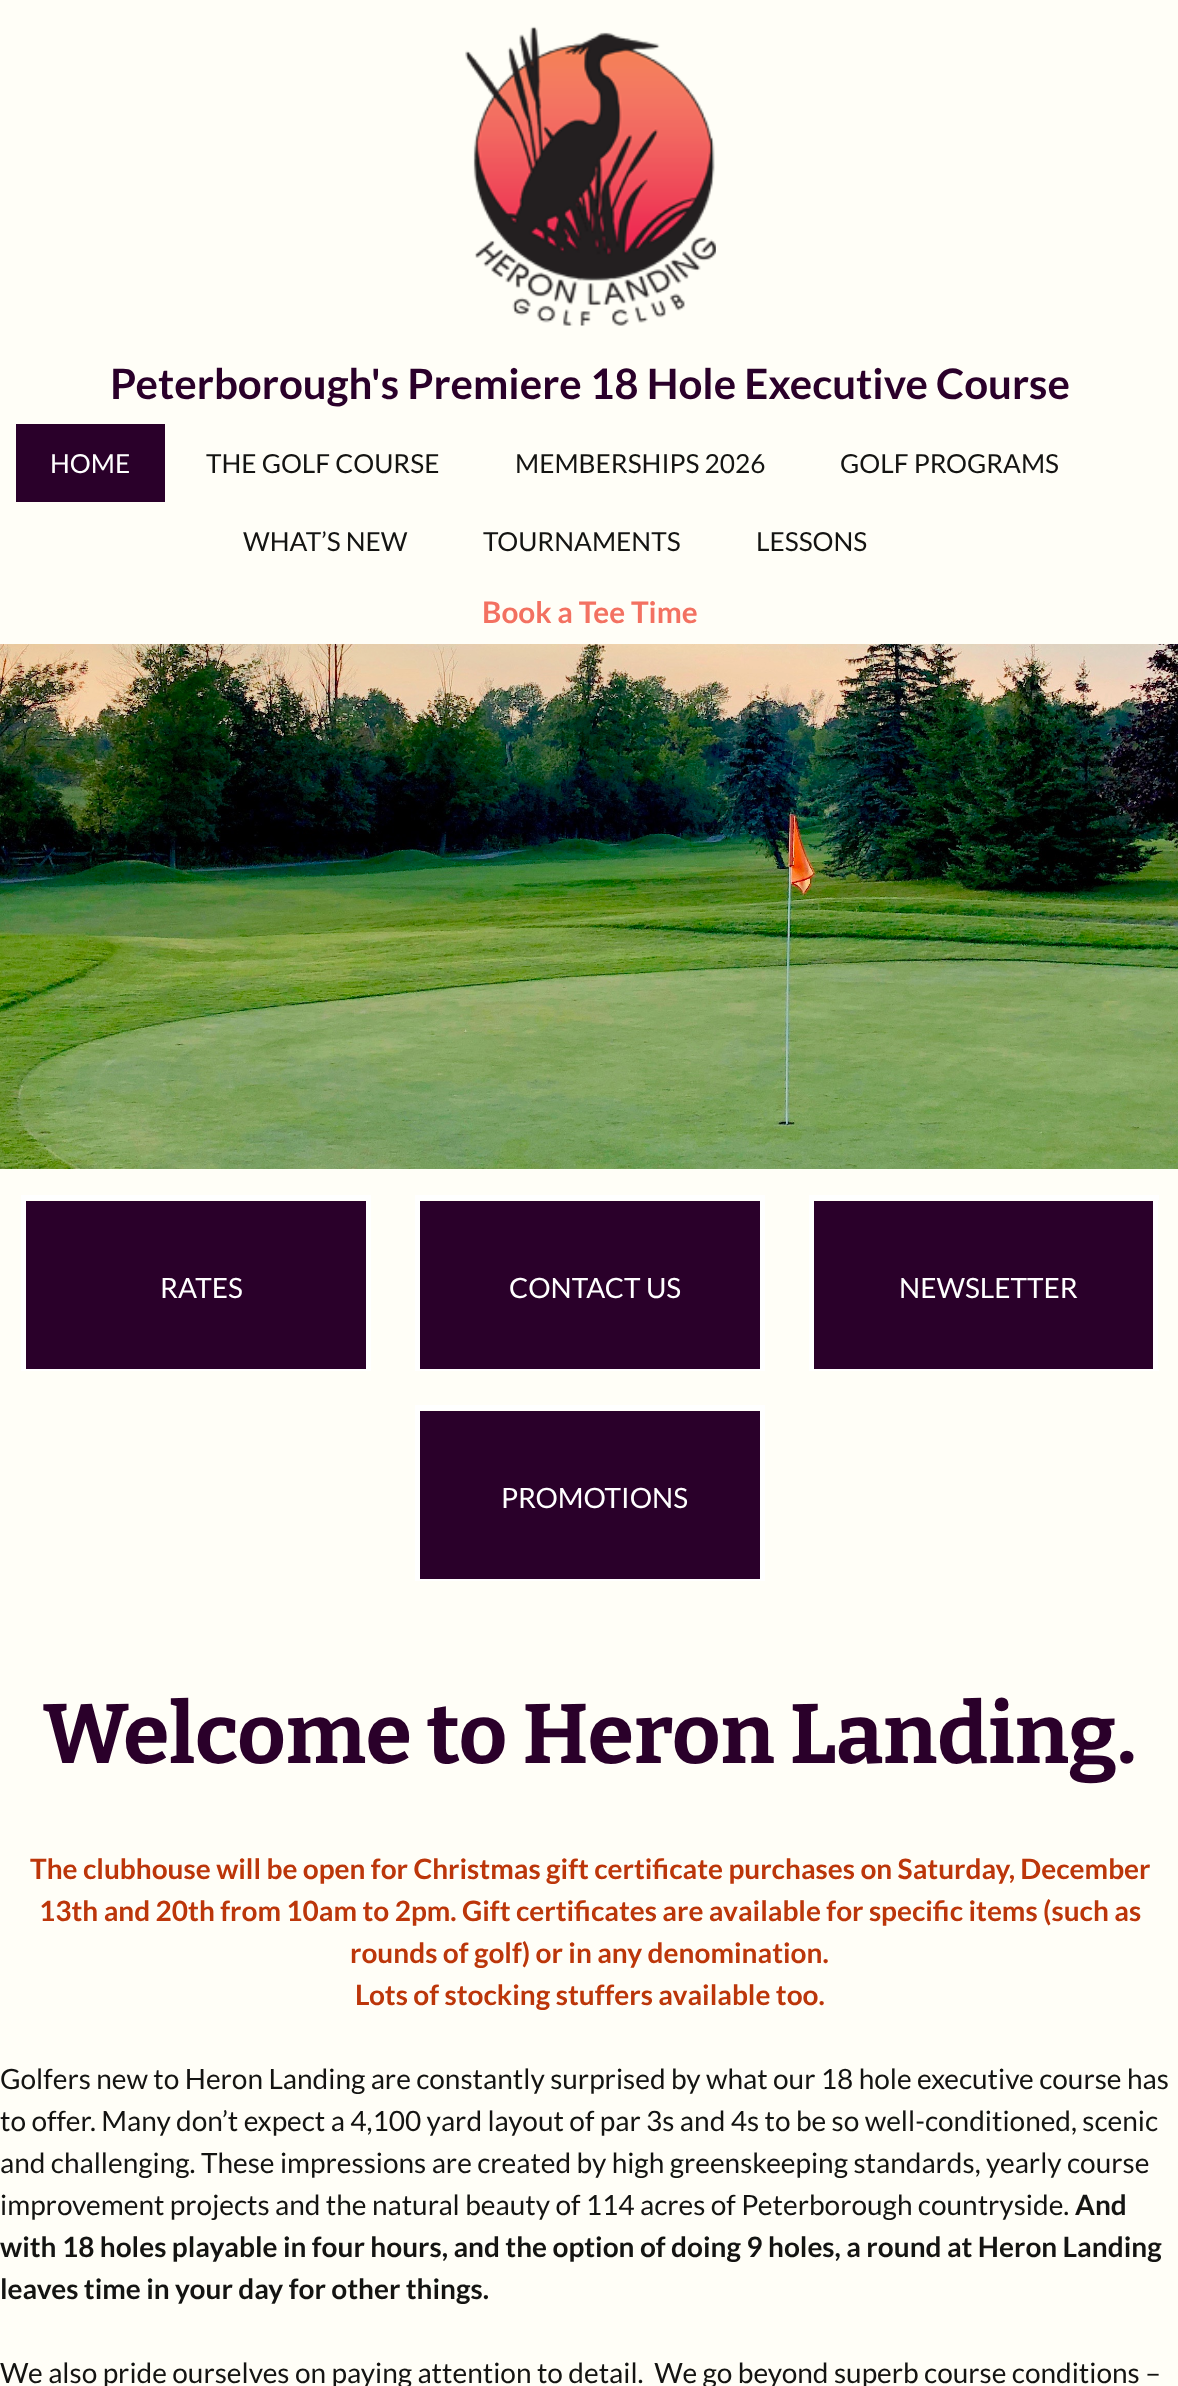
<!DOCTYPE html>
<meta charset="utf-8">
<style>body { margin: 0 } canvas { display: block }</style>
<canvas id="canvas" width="1178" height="2386"></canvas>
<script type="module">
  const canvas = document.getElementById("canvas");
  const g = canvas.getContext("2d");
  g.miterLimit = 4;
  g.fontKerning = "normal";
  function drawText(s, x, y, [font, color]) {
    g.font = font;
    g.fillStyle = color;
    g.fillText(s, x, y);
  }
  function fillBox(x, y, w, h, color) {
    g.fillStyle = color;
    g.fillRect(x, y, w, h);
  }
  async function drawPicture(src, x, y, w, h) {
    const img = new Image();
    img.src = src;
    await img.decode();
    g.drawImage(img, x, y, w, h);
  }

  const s1 = ["bold 42px Lato", "#2A002A"];
  const s2 = ["26.25px Lato", "#FFFFFF"];
  const s3 = ["26.25px Lato", "#141412"];
  const s4 = ["bold 29.75px Lato", "#F37161"];
  const s5 = ["28px Lato", "#FFFFFF"];
  const s6 = ["bold 84px Bitter", "#2A002A"];
  const s7 = ["bold 28px Lato", "#BC360A"];
  const s8 = ["28px Lato", "#141412"];
  const s9 = ["bold 28px Lato", "#141412"];

  fillBox(0, 0, 1178, 2386, "#FFFEF7");
  await drawPicture("pic1.png", 465, 26, 251, 300);
  drawText("Peterborough's Premiere 18 Hole Executive Course", 110, 399, s1);
  fillBox(16, 424, 149, 78, "#2A002A");
  drawText("HOME", 50, 473, s2);
  drawText("THE GOLF COURSE", 206, 473, s3);
  drawText("MEMBERSHIPS 2026", 515, 473, s3);
  drawText("GOLF PROGRAMS", 840, 473, s3);
  drawText("WHAT’S NEW", 243, 551, s3);
  drawText("TOURNAMENTS", 483, 551, s3);
  drawText("LESSONS", 756, 551, s3);
  drawText("Book a Tee Time", 482, 623, s4);
  await drawPicture("pic2.png", 0, 644, 1178, 525);
  fillBox(26, 1201, 340, 168, "#2A002A");
  fillBox(21, 1195, 350, 5, "#FFFFFF");
  fillBox(366, 1195, 5, 175, "#FFFFFF");
  fillBox(21, 1369, 350, 2, "#FFFFFF");
  fillBox(21, 1195, 5, 175, "#FFFFFF");
  drawText("RATES", 160, 1298, s5);
  fillBox(420, 1201, 340, 168, "#2A002A");
  fillBox(415, 1195, 350, 5, "#FFFFFF");
  fillBox(760, 1195, 5, 175, "#FFFFFF");
  fillBox(415, 1369, 350, 2, "#FFFFFF");
  fillBox(415, 1195, 5, 175, "#FFFFFF");
  drawText("CONTACT US", 509, 1298, s5);
  fillBox(814, 1201, 339, 168, "#2A002A");
  fillBox(809, 1195, 350, 5, "#FFFFFF");
  fillBox(1153, 1195, 5, 175, "#FFFFFF");
  fillBox(809, 1369, 350, 2, "#FFFFFF");
  fillBox(809, 1195, 5, 175, "#FFFFFF");
  drawText("NEWSLETTER", 899, 1298, s5);
  fillBox(420, 1411, 340, 168, "#2A002A");
  fillBox(415, 1405, 350, 5, "#FFFFFF");
  fillBox(760, 1405, 5, 175, "#FFFFFF");
  fillBox(415, 1579, 350, 2, "#FFFFFF");
  fillBox(415, 1405, 5, 175, "#FFFFFF");
  drawText("PROMOTIONS", 501, 1508, s5);
  drawText("Welcome to Heron Landing.", 43, 1763, s6);
  drawText("The clubhouse will be open for Christmas gift certificate purchases on Saturday, December", 30, 1879, s7);
  drawText("13th and 20th from 10am to 2pm. Gift certificates are available for specific items (such as", 39, 1921, s7);
  drawText("rounds of golf) or in any denomination.", 350, 1963, s7);
  drawText("Lots of stocking stuffers available too.", 355, 2005, s7);
  drawText("Golfers new to Heron Landing are constantly surprised by what our 18 hole executive course has", 0, 2089, s8);
  drawText("to offer. Many don’t expect a 4,100 yard layout of par 3s and 4s to be so well-conditioned, scenic", 0, 2131, s8);
  drawText("and challenging. These impressions are created by high greenskeeping standards, yearly course", 0, 2173, s8);
  drawText("improvement projects and the natural beauty of 114 acres of Peterborough countryside.", 0, 2215, s8);
  drawText("And", 1075, 2215, s9);
  drawText("with 18 holes playable in four hours, and the option of doing 9 holes, a round at Heron Landing", 0, 2257, s9);
  drawText("leaves time in your day for other things.", 0, 2299, s9);
  drawText("We also pride ourselves on paying attention to detail.  We go beyond superb course conditions –", 0, 2383, s8);
</script>
